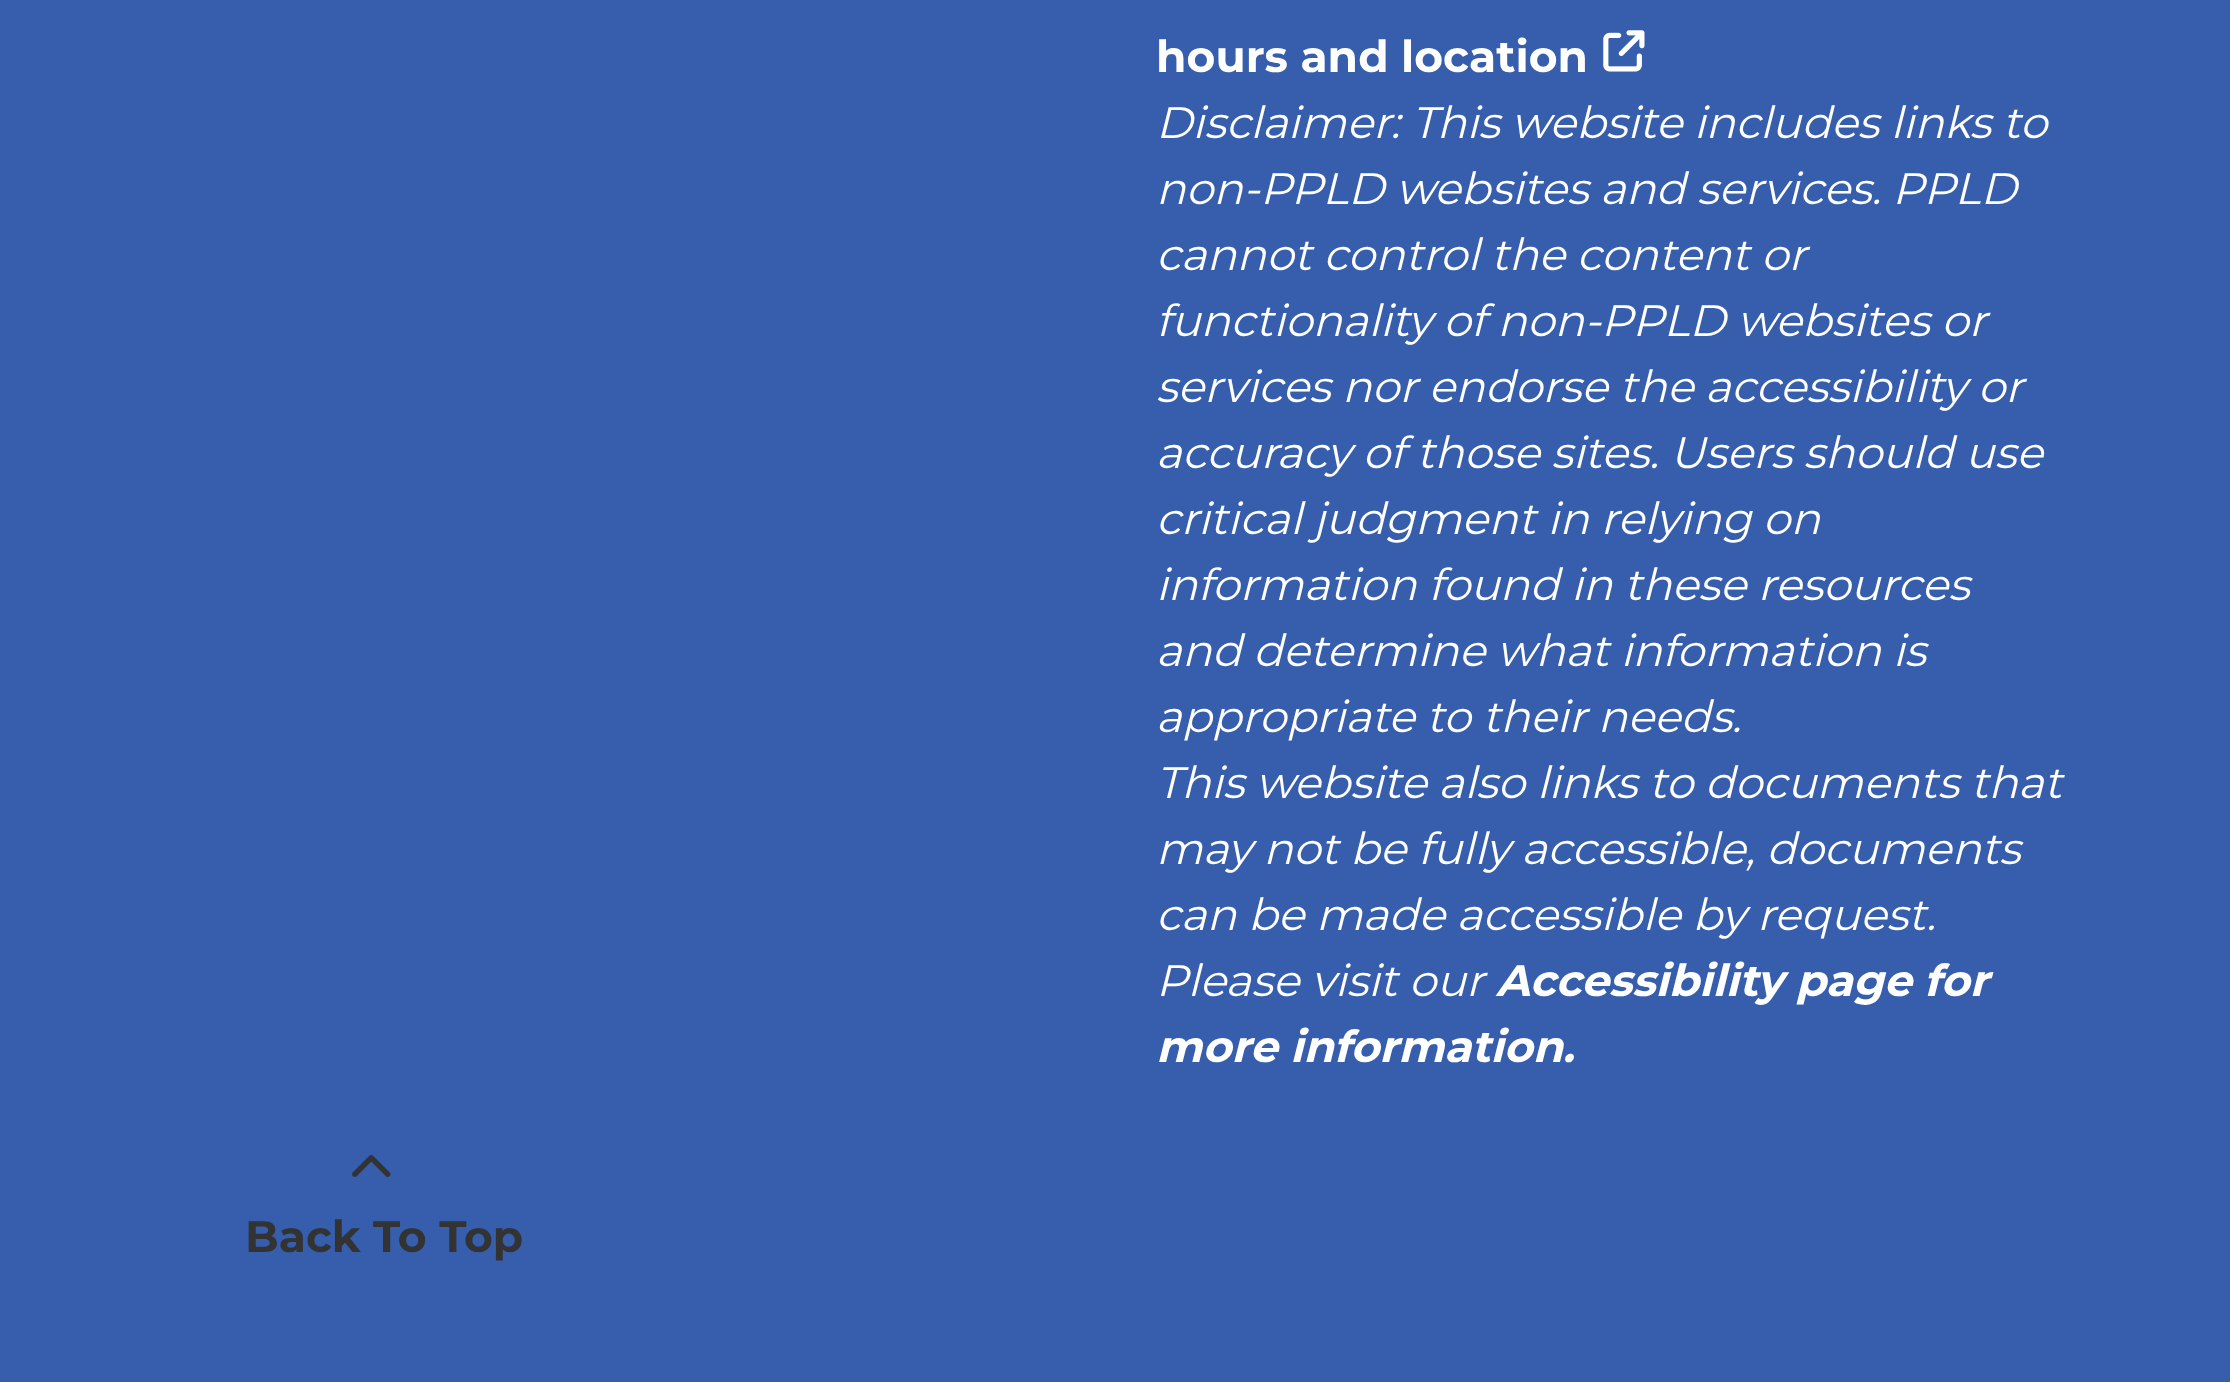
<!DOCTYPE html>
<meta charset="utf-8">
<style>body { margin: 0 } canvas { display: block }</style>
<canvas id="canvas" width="2230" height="1382"></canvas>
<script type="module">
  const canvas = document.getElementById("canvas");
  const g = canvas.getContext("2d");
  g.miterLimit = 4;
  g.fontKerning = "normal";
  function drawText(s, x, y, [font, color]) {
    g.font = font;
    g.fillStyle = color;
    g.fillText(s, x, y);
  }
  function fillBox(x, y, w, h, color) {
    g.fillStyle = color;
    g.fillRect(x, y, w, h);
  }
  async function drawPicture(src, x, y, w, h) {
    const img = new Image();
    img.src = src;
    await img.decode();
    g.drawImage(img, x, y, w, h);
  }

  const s1 = ["bold 44px Montserrat", "#FFFFFF"];
  const s2 = ["italic 44px Montserrat", "#FFFFFF"];
  const s3 = ["italic bold 44px Montserrat", "#FFFFFF"];
  const s4 = ["bold 44px Montserrat", "#333333"];

  fillBox(0, 0, 2230, 1382, "#375EAD");
  drawText("hours and location", 1156, 72, s1);
  await drawPicture("pic1.png", 1603, 30, 42, 42);
  drawText("Disclaimer: This website includes links to", 1156, 138, s2);
  drawText("non-PPLD websites and services. PPLD", 1156, 204, s2);
  drawText("cannot control the content or", 1156, 270, s2);
  drawText("functionality of non-PPLD websites or", 1156, 336, s2);
  drawText("services nor endorse the accessibility or", 1156, 402, s2);
  drawText("accuracy of those sites. Users should use", 1156, 468, s2);
  drawText("critical judgment in relying on", 1156, 534, s2);
  drawText("information found in these resources", 1156, 600, s2);
  drawText("and determine what information is", 1156, 666, s2);
  drawText("appropriate to their needs.", 1156, 732, s2);
  drawText("This website also links to documents that", 1156, 798, s2);
  drawText("may not be fully accessible, documents", 1156, 864, s2);
  drawText("can be made accessible by request.", 1156, 930, s2);
  drawText("Please visit our", 1156, 996, s2);
  drawText("Accessibility page for", 1496, 996, s3);
  drawText("more information.", 1156, 1062, s3);
  await drawPicture("pic2.png", 352, 1155, 39, 22);
  drawText("Back To Top", 245, 1252, s4);
</script>
